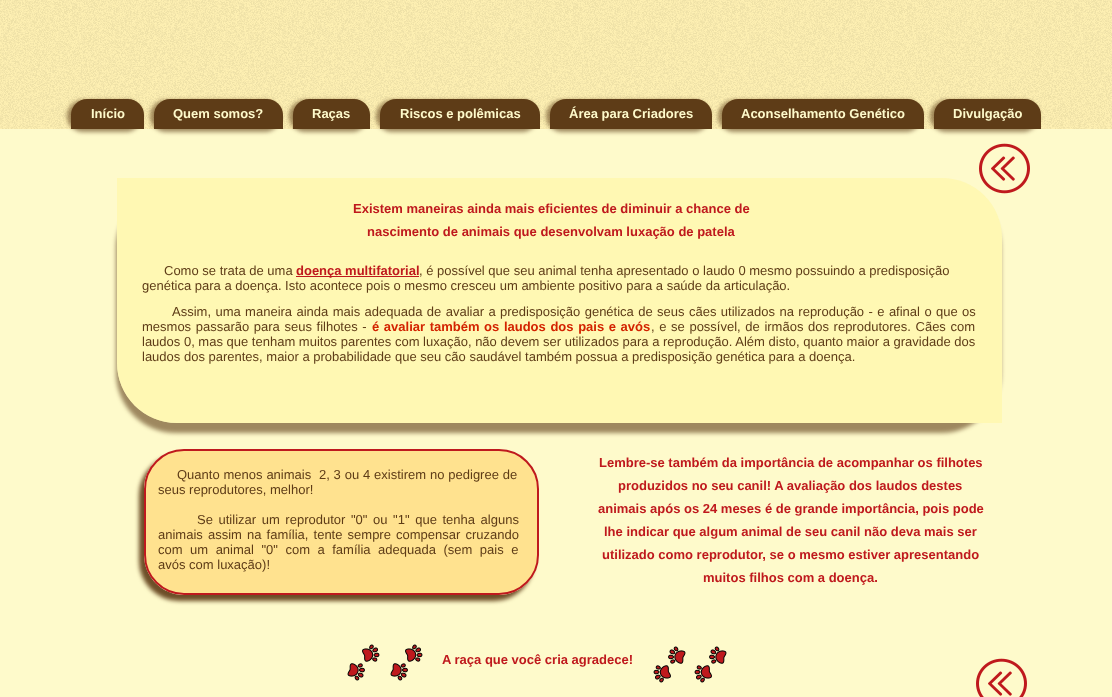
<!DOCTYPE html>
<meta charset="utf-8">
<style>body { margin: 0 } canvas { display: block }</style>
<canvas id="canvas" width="1112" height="697"></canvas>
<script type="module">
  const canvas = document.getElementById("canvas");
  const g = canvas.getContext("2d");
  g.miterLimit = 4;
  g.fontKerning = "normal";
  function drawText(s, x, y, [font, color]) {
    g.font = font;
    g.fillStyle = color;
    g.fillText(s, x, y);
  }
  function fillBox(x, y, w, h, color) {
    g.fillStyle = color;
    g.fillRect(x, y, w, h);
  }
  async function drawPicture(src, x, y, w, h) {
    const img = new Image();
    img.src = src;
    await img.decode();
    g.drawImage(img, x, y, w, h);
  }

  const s1 = ["bold 13px Liberation Sans", "#FEFACB"];
  const s2 = ["bold 13px Liberation Sans", "#BF191D"];
  const s3 = ["13px Liberation Sans", "#5E3C17"];
  const s4 = ["bold 13px Liberation Sans", "#D32300"];

  fillBox(0, 0, 1112, 697, "#FEFACB");
  fillBox(0, 0, 1112, 129, "#FEF0B2");
  await drawPicture("pic1.png", 0, 0, 1112, 129);
  g.fillStyle = "rgba(94, 60, 23, 0.6)";
  g.filter = "blur(2px)";
  g.beginPath();
  g.roundRect(67, 100, 75, 32, 17);
  g.fill();
  g.filter = "none";
  g.fillStyle = "#5E3C17";
  g.beginPath();
  g.roundRect(71, 99, 73, 30, [16, 16, 0, 0]);
  g.fill();
  drawText("Início", 91, 118, s1);
  g.fillStyle = "rgba(94, 60, 23, 0.6)";
  g.filter = "blur(2px)";
  g.beginPath();
  g.roundRect(150, 100, 131, 32, 17);
  g.fill();
  g.filter = "none";
  g.fillStyle = "#5E3C17";
  g.beginPath();
  g.roundRect(154, 99, 129, 30, [16, 16, 0, 0]);
  g.fill();
  drawText("Quem somos?", 173, 118, s1);
  g.fillStyle = "rgba(94, 60, 23, 0.6)";
  g.filter = "blur(2px)";
  g.beginPath();
  g.roundRect(289, 100, 79, 32, 17);
  g.fill();
  g.filter = "none";
  g.fillStyle = "#5E3C17";
  g.beginPath();
  g.roundRect(293, 99, 77, 30, [16, 16, 0, 0]);
  g.fill();
  drawText("Raças", 312, 118, s1);
  g.fillStyle = "rgba(94, 60, 23, 0.6)";
  g.filter = "blur(2px)";
  g.beginPath();
  g.roundRect(376, 100, 162, 32, 17);
  g.fill();
  g.filter = "none";
  g.fillStyle = "#5E3C17";
  g.beginPath();
  g.roundRect(380, 99, 160, 30, [16, 16, 0, 0]);
  g.fill();
  drawText("Riscos e polêmicas", 400, 118, s1);
  g.fillStyle = "rgba(94, 60, 23, 0.6)";
  g.filter = "blur(2px)";
  g.beginPath();
  g.roundRect(546, 100, 164, 32, 17);
  g.fill();
  g.filter = "none";
  g.fillStyle = "#5E3C17";
  g.beginPath();
  g.roundRect(550, 99, 162, 30, [16, 16, 0, 0]);
  g.fill();
  drawText("Área para Criadores", 569, 118, s1);
  g.fillStyle = "rgba(94, 60, 23, 0.6)";
  g.filter = "blur(2px)";
  g.beginPath();
  g.roundRect(718, 100, 204, 32, 17);
  g.fill();
  g.filter = "none";
  g.fillStyle = "#5E3C17";
  g.beginPath();
  g.roundRect(722, 99, 202, 30, [16, 16, 0, 0]);
  g.fill();
  drawText("Aconselhamento Genético", 741, 118, s1);
  g.fillStyle = "rgba(94, 60, 23, 0.6)";
  g.filter = "blur(2px)";
  g.beginPath();
  g.roundRect(930, 100, 109, 32, 17);
  g.fill();
  g.filter = "none";
  g.fillStyle = "#5E3C17";
  g.beginPath();
  g.roundRect(934, 99, 107, 30, [16, 16, 0, 0]);
  g.fill();
  drawText("Divulgação", 953, 118, s1);
  g.save();
  g.beginPath();
  g.moveTo(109, 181);
  g.lineTo(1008, 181);
  g.lineTo(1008, 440);
  g.lineTo(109, 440);
  g.closePath();
  g.moveTo(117, 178);
  g.lineTo(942, 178);
  g.bezierCurveTo(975, 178, 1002, 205, 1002, 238);
  g.lineTo(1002, 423);
  g.lineTo(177, 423);
  g.bezierCurveTo(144, 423, 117, 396, 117, 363);
  g.closePath();
  g.clip("evenodd");
  g.fillStyle = "rgba(94, 60, 23, 0.6)";
  g.filter = "blur(2px)";
  g.beginPath();
  g.roundRect(116, 188, 885, 245, 60);
  g.fill();
  g.filter = "none";
  g.restore();
  g.fillStyle = "rgba(255, 247, 170, 0.73)";
  g.beginPath();
  g.roundRect(117, 178, 885, 245, [0, 60, 0, 60]);
  g.fill();
  await drawPicture("pic2.png", 979, 143, 51, 51);
  drawText("Existem maneiras ainda mais eficientes de diminuir a chance de", 353, 213, s2);
  drawText("nascimento de animais que desenvolvam luxação de patela", 367, 236, s2);
  drawText("Como se trata de uma", 164, 275, s3);
  fillBox(296, 276, 123, 1, "#BF191D");
  drawText("doença multifatorial", 296, 275, s2);
  drawText(", é possível que seu animal tenha apresentado o laudo 0 mesmo possuindo a predisposição", 419, 275, s3);
  drawText("genética para a doença. Isto acontece pois o mesmo cresceu um ambiente positivo para a saúde da articulação.", 142, 290, s3);
  g.wordSpacing = "0.8px";
  drawText("Assim, uma maneira ainda mais adequada de avaliar a predisposição genética de seus cães utilizados na reprodução - e afinal o que os", 172, 316, s3);
  g.wordSpacing = "1px";
  drawText("mesmos passarão para seus filhotes -", 142, 331, s3);
  drawText("é avaliar também os laudos dos pais e avós", 372, 331, s4);
  drawText(", e se possível, de irmãos dos reprodutores. Cães com", 651, 331, s3);
  g.wordSpacing = "0px";
  drawText("laudos 0, mas que tenham muitos parentes com luxação, não devem ser utilizados para a reprodução. Além disto, quanto maior a gravidade dos", 142, 346, s3);
  drawText("laudos dos parentes, maior a probabilidade que seu cão saudável também possua a predisposição genética para a doença.", 142, 361, s3);
  g.save();
  g.beginPath();
  g.moveTo(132, 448);
  g.lineTo(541, 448);
  g.lineTo(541, 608);
  g.lineTo(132, 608);
  g.closePath();
  g.moveTo(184, 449);
  g.lineTo(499, 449);
  g.bezierCurveTo(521, 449, 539, 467, 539, 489);
  g.lineTo(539, 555);
  g.bezierCurveTo(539, 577, 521, 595, 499, 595);
  g.lineTo(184, 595);
  g.bezierCurveTo(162, 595, 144, 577, 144, 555);
  g.lineTo(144, 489);
  g.bezierCurveTo(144, 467, 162, 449, 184, 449);
  g.closePath();
  g.clip("evenodd");
  g.fillStyle = "rgba(94, 60, 23, 0.91)";
  g.filter = "blur(2px)";
  g.beginPath();
  g.roundRect(139, 455, 395, 146, 40);
  g.fill();
  g.filter = "none";
  g.restore();
  g.fillStyle = "rgba(255, 214, 110, 0.65)";
  g.beginPath();
  g.roundRect(145, 450, 393, 144, 39);
  g.fill();
  g.strokeStyle = "#BF191D";
  g.lineWidth = 2;
  g.stroke();
  g.wordSpacing = "0.25px";
  drawText("Quanto menos animais  2, 3 ou 4 existirem no pedigree de", 177, 479, s3);
  g.wordSpacing = "0px";
  drawText("seus reprodutores, melhor!", 158, 494, s3);
  g.wordSpacing = "2px";
  drawText("Se utilizar um reprodutor \"0\" ou \"1\" que tenha alguns", 197, 524, s3);
  g.wordSpacing = "1.5px";
  drawText("animais assim na família, tente sempre compensar cruzando", 158, 539, s3);
  g.wordSpacing = "3.9px";
  drawText("com um animal \"0\" com a família adequada (sem pais e", 158, 554, s3);
  g.wordSpacing = "0px";
  drawText("avós com luxação)!", 158, 569, s3);
  drawText("Lembre-se também da importância de acompanhar os filhotes", 599, 467, s2);
  drawText("produzidos no seu canil! A avaliação dos laudos destes", 618, 490, s2);
  drawText("animais após os 24 meses é de grande importância, pois pode", 598, 513, s2);
  drawText("lhe indicar que algum animal de seu canil não deva mais ser", 604, 536, s2);
  drawText("utilizado como reprodutor, se o mesmo estiver apresentando", 602, 559, s2);
  drawText("muitos filhos com a doença.", 703, 582, s2);
  await drawPicture("pic3.png", 347, 644, 33, 37);
  await drawPicture("pic3.png", 390, 644, 33, 37);
  drawText("A raça que você cria agradece!", 442, 664, s2);
  await drawPicture("pic4.png", 653, 646, 33, 37);
  await drawPicture("pic4.png", 694, 646, 33, 37);
  await drawPicture("pic5.png", 976, 658, 51, 39);
</script>
